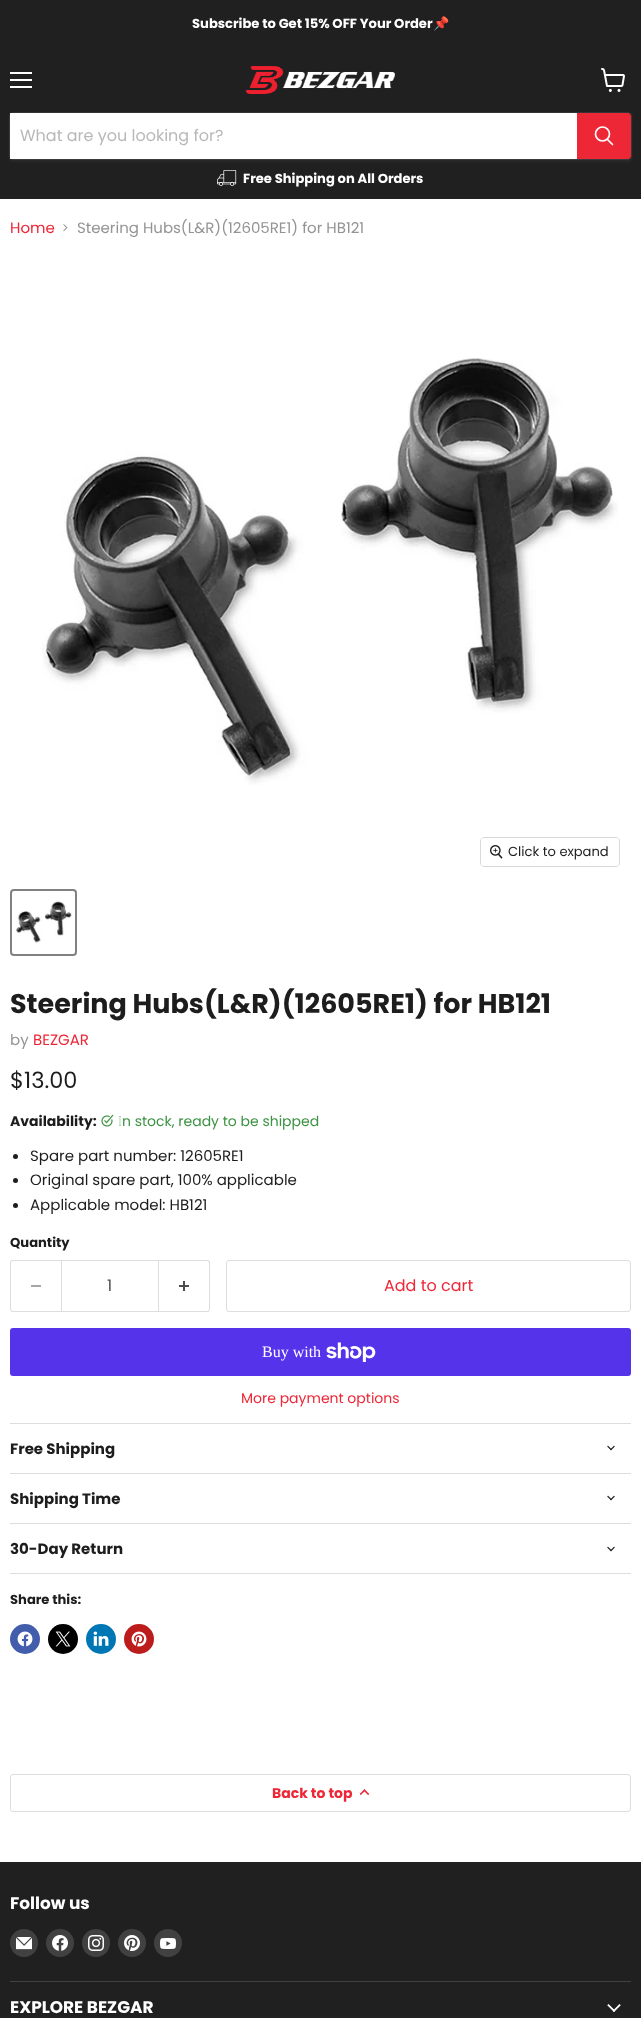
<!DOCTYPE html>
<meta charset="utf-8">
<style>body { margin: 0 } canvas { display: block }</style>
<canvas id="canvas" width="641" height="2018"></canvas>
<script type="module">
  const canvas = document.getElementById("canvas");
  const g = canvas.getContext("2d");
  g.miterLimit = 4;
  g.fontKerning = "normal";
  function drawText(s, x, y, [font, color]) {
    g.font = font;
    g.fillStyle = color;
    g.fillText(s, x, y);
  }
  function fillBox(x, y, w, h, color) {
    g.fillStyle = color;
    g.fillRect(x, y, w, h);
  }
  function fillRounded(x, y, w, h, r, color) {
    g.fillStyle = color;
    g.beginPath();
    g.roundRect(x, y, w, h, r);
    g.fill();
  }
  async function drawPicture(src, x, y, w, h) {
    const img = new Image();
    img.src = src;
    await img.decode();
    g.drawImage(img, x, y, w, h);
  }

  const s1 = ["bold 13.1px Poppins", "#FFFFFF"];
  const s2 = ["bold 13.1px Noto Color Emoji", "#FFFFFF"];
  const s3 = ["16px Poppins", "#B8B8B8"];
  const s4 = ["15px Poppins", "#EE2737"];
  const s5 = ["15px Poppins", "#949494"];
  const s6 = ["13.1px Poppins", "#1D1D1D"];
  const s7 = ["bold 27px Poppins", "#1D1D1D"];
  const s8 = ["22.5px Poppins", "#1D1D1D"];
  const s9 = ["bold 14px Poppins", "#1D1D1D"];
  const s10 = ["100 14px Noto Sans", "#3C9342"];
  const s11 = ["14px Poppins", "#3C9342"];
  const s12 = ["15px Poppins", "#1D1D1D"];
  const s13 = ["bold 13.1px Poppins", "#1D1D1D"];
  const s14 = ["16px Poppins", "#4D4D4D"];
  const s15 = ["16px Poppins", "#EE2737"];
  const s16 = ["16px Liberation Serif", "#FFFFFF"];
  const s17 = ["14px Poppins", "#EE2737"];
  const s18 = ["bold 15px Poppins", "#1D1D1D"];
  const s19 = ["bold 14px Poppins", "#EE2737"];
  const s20 = ["bold 16.9px Poppins", "#FFFFFF"];

  fillBox(0, 0, 641, 2018, "#FFFFFF");
  fillBox(0, 0, 641, 199, "#202020");
  drawText("Subscribe to Get 15% OFF Your Order", 192, 28, s1);
  drawText("📌", 433, 28, s2);
  fillBox(10, 72, 22, 2, "#FFFFFF");
  fillBox(10, 79, 22, 2, "#FFFFFF");
  fillBox(10, 86, 22, 2, "#FFFFFF");
  await drawPicture("pic1.png", 601, 68, 24, 24);
  await drawPicture("pic2.png", 245, 66, 150, 28);
  g.fillStyle = "rgba(128, 128, 128, 0.11)";
  g.filter = "blur(1.5px)";
  g.beginPath();
  g.roundRect(9, 114, 623, 48, 4);
  g.fill();
  g.filter = "none";
  g.beginPath();
  g.roundRect(9.5, 112.5, 622, 47, 3.5);
  g.strokeStyle = "rgba(128, 128, 128, 0.2)";
  g.stroke();
  fillBox(10, 113, 567, 46, "#FFFFFF");
  drawText("What are you looking for?", 20, 141, s3);
  g.fillStyle = "#EE2737";
  g.beginPath();
  g.roundRect(577.5, 113.5, 53, 45, [0, 2.5, 2.5, 0]);
  g.fill();
  g.strokeStyle = "#EE2737";
  g.stroke();
  g.beginPath();
  g.moveTo(612.5, 144.5);
  g.lineTo(607.5, 139.5);
  g.strokeStyle = "#FFFFFF";
  g.lineWidth = 1.7;
  g.lineCap = "round";
  g.stroke();
  g.beginPath();
  g.arc(602.5, 134, 7, 0, Math.PI * 2);
  g.stroke();
  await drawPicture("pic3.png", 217, 170, 20, 16);
  drawText("Free Shipping on All Orders", 243, 183, s1);
  drawText("Home", 10, 233, s4);
  await drawPicture("pic4.png", 63, 224, 5, 8);
  drawText("Steering Hubs(L&R)(12605RE1) for HB121", 77, 233, s5);
  await drawPicture("pic5.png", 42, 358, 576, 427);
  g.beginPath();
  g.roundRect(480.5, 837.5, 139, 29, 3.5);
  g.strokeStyle = "#D9D9D9";
  g.lineWidth = 1;
  g.stroke();
  fillRounded(481, 838, 138, 28, 3, "rgba(255, 255, 255, 0.9)");
  await drawPicture("pic6.png", 490, 845, 13, 14);
  drawText("Click to expand", 508, 856, s6);
  g.beginPath();
  g.roundRect(11, 890, 65, 65, 3);
  g.strokeStyle = "#818181";
  g.lineWidth = 2;
  g.stroke();
  await drawPicture("pic7.png", 16, 901, 56, 42);
  drawText("Steering Hubs(L&R)(12605RE1) for HB121", 10, 1013, s7);
  drawText("by", 10, 1045, s5);
  drawText("BEZGAR", 33, 1045, s4);
  drawText("$13.00", 10, 1088, s8);
  drawText("Availability:", 10, 1126, s9);
  await drawPicture("pic8.png", 101, 1114, 13, 13);
  drawText("I", 118, 1126, s10);
  drawText("n stock, ready to be shipped", 122, 1126, s11);
  g.fillStyle = "#1D1D1D";
  g.beginPath();
  g.arc(15.5, 1156.5, 2.5, 0, Math.PI * 2);
  g.fill();
  drawText("Spare part number: 12605RE1", 30, 1161, s12);
  g.beginPath();
  g.arc(15.5, 1180.5, 2.5, 0, Math.PI * 2);
  g.fill();
  drawText("Original spare part, 100% applicable", 30, 1185, s12);
  g.beginPath();
  g.arc(15.5, 1205.5, 2.5, 0, Math.PI * 2);
  g.fill();
  drawText("Applicable model: HB121", 30, 1210, s12);
  drawText("Quantity", 10, 1247, s13);
  g.fillStyle = "#DDDDDD";
  g.beginPath();
  g.moveTo(13, 1260);
  g.lineTo(61, 1260);
  g.lineTo(61, 1312);
  g.lineTo(13, 1312);
  g.bezierCurveTo(11, 1312, 10, 1311, 10, 1309);
  g.lineTo(10, 1263);
  g.bezierCurveTo(10, 1261, 11, 1260, 13, 1260);
  g.closePath();
  g.moveTo(13, 1261);
  g.lineTo(61, 1261);
  g.lineTo(61, 1311);
  g.lineTo(13, 1311);
  g.bezierCurveTo(12, 1311, 11, 1310, 11, 1309);
  g.lineTo(11, 1263);
  g.bezierCurveTo(11, 1262, 12, 1261, 13, 1261);
  g.closePath();
  g.fill("evenodd");
  fillBox(31, 1285, 10, 2, "#A6A6A6");
  g.strokeStyle = "#DDDDDD";
  g.lineWidth = 1;
  g.strokeRect(61.5, 1260.5, 97, 51);
  drawText("1", 107, 1291, s14);
  g.fillStyle = "#DDDDDD";
  g.beginPath();
  g.moveTo(159, 1260);
  g.lineTo(207, 1260);
  g.bezierCurveTo(209, 1260, 210, 1261, 210, 1263);
  g.lineTo(210, 1309);
  g.bezierCurveTo(210, 1311, 209, 1312, 207, 1312);
  g.lineTo(159, 1312);
  g.closePath();
  g.moveTo(159, 1261);
  g.lineTo(207, 1261);
  g.bezierCurveTo(208, 1261, 209, 1262, 209, 1263);
  g.lineTo(209, 1309);
  g.bezierCurveTo(209, 1310, 208, 1311, 207, 1311);
  g.lineTo(159, 1311);
  g.closePath();
  g.fill("evenodd");
  await drawPicture("pic9.png", 179, 1281, 10, 10);
  g.beginPath();
  g.roundRect(226.5, 1260.5, 404, 51, 2.5);
  g.stroke();
  drawText("Add to cart", 384, 1291, s15);
  fillRounded(10, 1328, 621, 48, 3, "#5433EB");
  drawText("Buy with", 262, 1357, s16);
  await drawPicture("pic10.png", 326, 1342, 50, 20);
  drawText("More payment options", 241, 1403, s17);
  fillBox(10, 1423, 621, 1, "#DDDDDD");
  fillBox(10, 1473, 621, 1, "#DDDDDD");
  drawText("Free Shipping", 10, 1454, s18);
  await drawPicture("pic11.png", 607, 1445, 8, 6);
  fillBox(10, 1523, 621, 1, "#DDDDDD");
  drawText("Shipping Time", 10, 1504, s18);
  await drawPicture("pic11.png", 607, 1495, 8, 6);
  fillBox(10, 1573, 621, 1, "#DDDDDD");
  drawText("30-Day Return", 10, 1554, s18);
  await drawPicture("pic11.png", 607, 1546, 8, 6);
  drawText("Share this:", 10, 1604, s13);
  g.fillStyle = "#425DAB";
  g.beginPath();
  g.arc(25, 1639, 15, 0, Math.PI * 2);
  g.fill();
  await drawPicture("pic12.png", 17, 1631, 16, 16);
  g.fillStyle = "#000000";
  g.beginPath();
  g.arc(63, 1639, 15, 0, Math.PI * 2);
  g.fill();
  await drawPicture("pic13.png", 55, 1631, 16, 16);
  g.fillStyle = "#0077B5";
  g.beginPath();
  g.arc(101, 1639, 15, 0, Math.PI * 2);
  g.fill();
  await drawPicture("pic14.png", 93, 1631, 16, 15);
  g.fillStyle = "#BD1C1C";
  g.beginPath();
  g.arc(139, 1639, 15, 0, Math.PI * 2);
  g.fill();
  await drawPicture("pic15.png", 131, 1631, 16, 16);
  g.beginPath();
  g.roundRect(10.5, 1774.5, 620, 37, 2.5);
  g.stroke();
  drawText("Back to top", 272, 1798, s19);
  await drawPicture("pic16.png", 360, 1789, 10, 7);
  fillBox(0, 1862, 641, 156, "#202020");
  fillBox(10, 1981, 621, 1, "#414141");
  drawText("Follow us", 10, 1909, s20);
  g.fillStyle = "#414141";
  g.beginPath();
  g.arc(24, 1943, 14, 0, Math.PI * 2);
  g.fill();
  await drawPicture("pic17.png", 16, 1937, 16, 13);
  g.beginPath();
  g.arc(60, 1943, 14, 0, Math.PI * 2);
  g.fill();
  await drawPicture("pic18.png", 52, 1935, 16, 16);
  g.beginPath();
  g.arc(96, 1943, 14, 0, Math.PI * 2);
  g.fill();
  await drawPicture("pic19.png", 88, 1935, 16, 16);
  g.beginPath();
  g.arc(132, 1943, 14, 0, Math.PI * 2);
  g.fill();
  await drawPicture("pic20.png", 124, 1935, 16, 16);
  g.beginPath();
  g.arc(168, 1943, 14, 0, Math.PI * 2);
  g.fill();
  await drawPicture("pic21.png", 160, 1938, 16, 11);
  drawText("EXPLORE BEZGAR", 10, 2013, s20);
  await drawPicture("pic22.png", 607, 2004, 14, 8);
</script>
